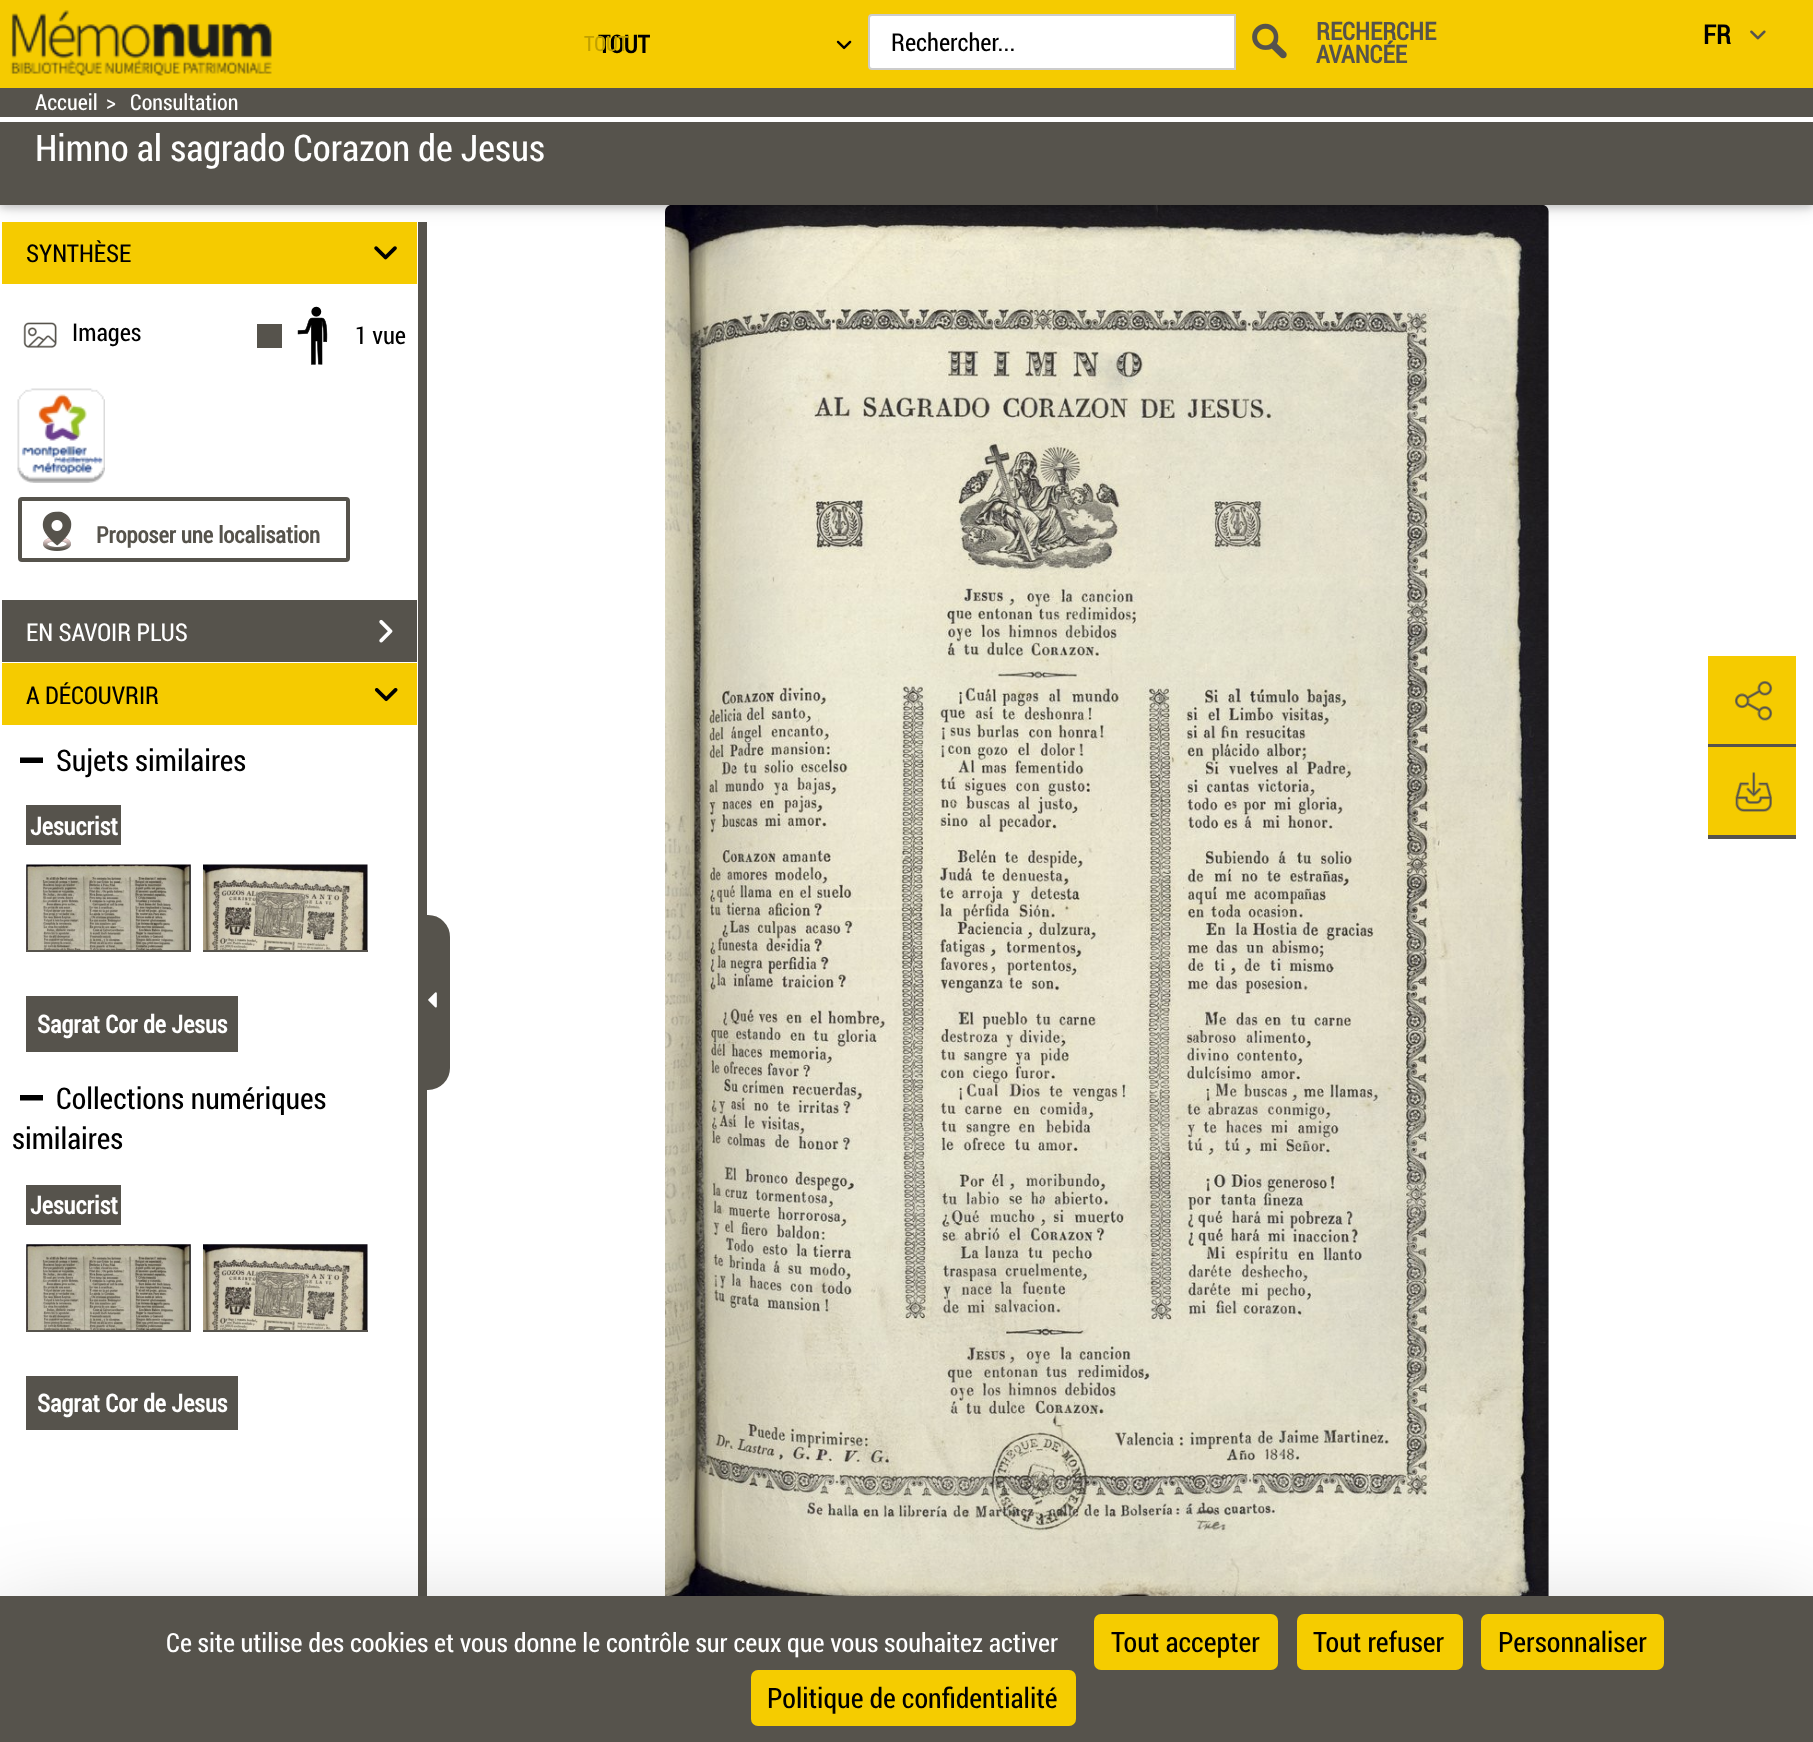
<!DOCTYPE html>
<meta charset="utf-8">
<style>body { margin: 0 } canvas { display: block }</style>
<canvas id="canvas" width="1813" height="1742"></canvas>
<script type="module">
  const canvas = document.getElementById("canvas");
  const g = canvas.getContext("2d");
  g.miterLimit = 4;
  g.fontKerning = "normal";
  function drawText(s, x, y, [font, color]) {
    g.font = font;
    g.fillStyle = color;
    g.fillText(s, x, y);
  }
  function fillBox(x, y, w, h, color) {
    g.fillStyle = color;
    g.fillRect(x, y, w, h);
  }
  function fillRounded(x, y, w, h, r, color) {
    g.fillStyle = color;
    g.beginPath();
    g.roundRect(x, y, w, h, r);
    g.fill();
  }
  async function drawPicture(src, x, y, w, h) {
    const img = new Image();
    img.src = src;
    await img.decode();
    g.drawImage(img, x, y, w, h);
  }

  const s1 = ["bold 24.5px Roboto Condensed", "#000000"];
  const s2 = ["21px Roboto Condensed", "#C1A000"];
  const s3 = ["24.5px Roboto Condensed", "#000000"];
  const s4 = ["bold 24.5px Roboto Condensed", "#56534C"];
  const s5 = ["bold 26.25px Roboto Condensed", "#000000"];
  const s6 = ["22px Roboto Condensed", "#FFFFFF"];
  const s7 = ["36.75px Roboto Condensed", "#FFFFFF"];
  const s8 = ["bold 22.75px Roboto Condensed", "#56534C"];
  const s9 = ["24.5px Roboto Condensed", "#FFFFFF"];
  const s10 = ["29.75px Roboto Condensed", "#000000"];
  const s11 = ["bold 24.5px Roboto Condensed", "#FFFFFF"];
  const s12 = ["26.25px Roboto Condensed", "#FFFFFF"];
  const s13 = ["28px Roboto Condensed", "#000000"];

  fillBox(0, 0, 1813, 1742, "#FFFFFF");
  await drawPicture("pic17.png", 665, 205, 884, 1391);
  g.fillStyle = "rgba(0, 0, 0, 0.12)";
  g.filter = "blur(9px)";
  g.beginPath();
  g.rect(0, 91, 1813, 117);
  g.fill();
  g.filter = "none";
  g.fillStyle = "rgba(0, 0, 0, 0.16)";
  g.filter = "blur(3.5px)";
  g.beginPath();
  g.rect(0, 91, 1813, 117);
  g.fill();
  g.filter = "none";
  fillBox(0, 0, 1813, 88, "#F5CB00");
  await drawPicture("pic1.png", 10, 10, 262, 66);
  drawText("TOUT", 598, 53, s1);
  drawText("TOUT", 584, 51, s2);
  await drawPicture("pic2.png", 836, 40, 16, 10);
  g.fillStyle = "#FFFFFF";
  g.beginPath();
  g.roundRect(869, 15, 366, 54, [3, 0, 0, 3]);
  g.fill();
  g.strokeStyle = "#CCCCCC";
  g.lineWidth = 2;
  g.stroke();
  drawText("Rechercher...", 891, 51, s3);
  await drawPicture("pic3.png", 1252, 23, 35, 36);
  drawText("RECHERCHE", 1316, 40, s4);
  drawText("AVANCÉE", 1316, 63, s4);
  drawText("FR", 1703, 44, s5);
  await drawPicture("pic4.png", 1750, 30, 16, 10);
  fillBox(0, 88, 1813, 117, "#56534C");
  fillBox(0, 117, 1813, 5, "#FFFFFF");
  drawText("Accueil", 35, 110, s6);
  drawText(">", 106, 110, s6);
  drawText("Consultation", 130, 110, s6);
  drawText("Himno al sagrado Corazon de Jesus", 35, 161, s7);
  fillBox(418, 222, 9, 1374, "#56534C");
  fillBox(2, 222, 415, 62, "#F5CB00");
  drawText("SYNTHÈSE", 26, 262, s3);
  await drawPicture("pic5.png", 374, 246, 23, 14);
  await drawPicture("pic6.png", 23, 322, 34, 26);
  drawText("Images", 72, 341, s3);
  fillBox(257, 324, 25, 24, "#56534C");
  await drawPicture("pic7.png", 297, 306, 31, 59);
  drawText("1 vue", 355, 344, s3);
  await drawPicture("pic8.png", 17, 388, 88, 95);
  g.beginPath();
  g.roundRect(20, 499, 328, 61, 2);
  g.strokeStyle = "#56534C";
  g.lineWidth = 4;
  g.stroke();
  await drawPicture("pic9.png", 42, 511, 30, 40);
  drawText("Proposer une localisation", 96, 543, s8);
  fillBox(2, 600, 415, 62, "#56534C");
  drawText("EN SAVOIR PLUS", 26, 641, s9);
  await drawPicture("pic10.png", 379, 619, 14, 24);
  fillBox(2, 663, 415, 62, "#F5CB00");
  drawText("A DÉCOUVRIR", 26, 704, s3);
  await drawPicture("pic11.png", 374, 688, 24, 14);
  drawText("Sujets similaires", 56, 771, s10);
  g.beginPath();
  g.moveTo(28.5, 763);
  g.lineTo(20, 763);
  g.lineTo(20, 757.5);
  g.lineTo(43, 757.5);
  g.lineTo(43, 763);
  g.closePath();
  g.fill();
  fillBox(26, 805, 95, 40, "#56534C");
  drawText("Jesucrist", 30, 835, s11);
  await drawPicture("pic12.png", 26, 864, 165, 86);
  fillBox(26, 950, 165, 2, "#56534C");
  await drawPicture("pic13.png", 203, 864, 165, 86);
  fillBox(203, 950, 165, 2, "#56534C");
  fillBox(26, 996, 212, 56, "#56534C");
  drawText("Sagrat Cor de Jesus", 37, 1033, s11);
  drawText("Collections numériques", 56, 1109, s10);
  g.beginPath();
  g.moveTo(28.5, 1100.5);
  g.lineTo(20, 1100.5);
  g.lineTo(20, 1095);
  g.lineTo(43, 1095);
  g.lineTo(43, 1100.5);
  g.closePath();
  g.fill();
  drawText("similaires", 12, 1149, s10);
  fillBox(26, 1185, 95, 40, "#56534C");
  drawText("Jesucrist", 30, 1214, s11);
  await drawPicture("pic14.png", 26, 1244, 165, 86);
  fillBox(26, 1330, 165, 2, "#56534C");
  await drawPicture("pic15.png", 203, 1244, 165, 86);
  fillBox(203, 1330, 165, 2, "#56534C");
  fillBox(26, 1376, 212, 54, "#56534C");
  drawText("Sagrat Cor de Jesus", 37, 1412, s11);
  g.fillStyle = "#56534C";
  g.beginPath();
  g.roundRect(428, 916, 21, 173, [0, 22, 22, 0]);
  g.fill();
  g.lineWidth = 2;
  g.stroke();
  await drawPicture("pic16.png", 428, 992, 9, 16);
  fillBox(1708, 656, 88, 88, "#F5CB00");
  await drawPicture("pic18.png", 1734, 681, 39, 40);
  fillBox(1708, 744, 88, 3, "#56534C");
  fillBox(1708, 747, 88, 88, "#F5CB00");
  await drawPicture("pic19.png", 1735, 772, 37, 40);
  fillBox(1708, 835, 88, 4, "#56534C");
  g.fillStyle = "rgba(0, 0, 0, 0.25)";
  g.filter = "blur(52.5px)";
  g.beginPath();
  g.rect(0, 1631, 1813, 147);
  g.fill();
  g.filter = "none";
  fillBox(0, 1596, 1813, 146, "#56534C");
  drawText("Ce site utilise des cookies et vous donne le contrôle sur ceux que vous souhaitez activer", 166, 1652, s12);
  fillRounded(1094, 1614, 184, 56, 7, "#F5CC00");
  drawText("Tout accepter", 1111, 1652, s13);
  fillRounded(1297, 1614, 166, 56, 7, "#F5CC00");
  drawText("Tout refuser", 1313, 1652, s13);
  fillRounded(1481, 1614, 183, 56, 7, "#F5CC00");
  drawText("Personnaliser", 1498, 1652, s13);
  fillRounded(751, 1670, 325, 56, 7, "#F5CC00");
  drawText("Politique de confidentialité", 767, 1708, s13);
</script>
